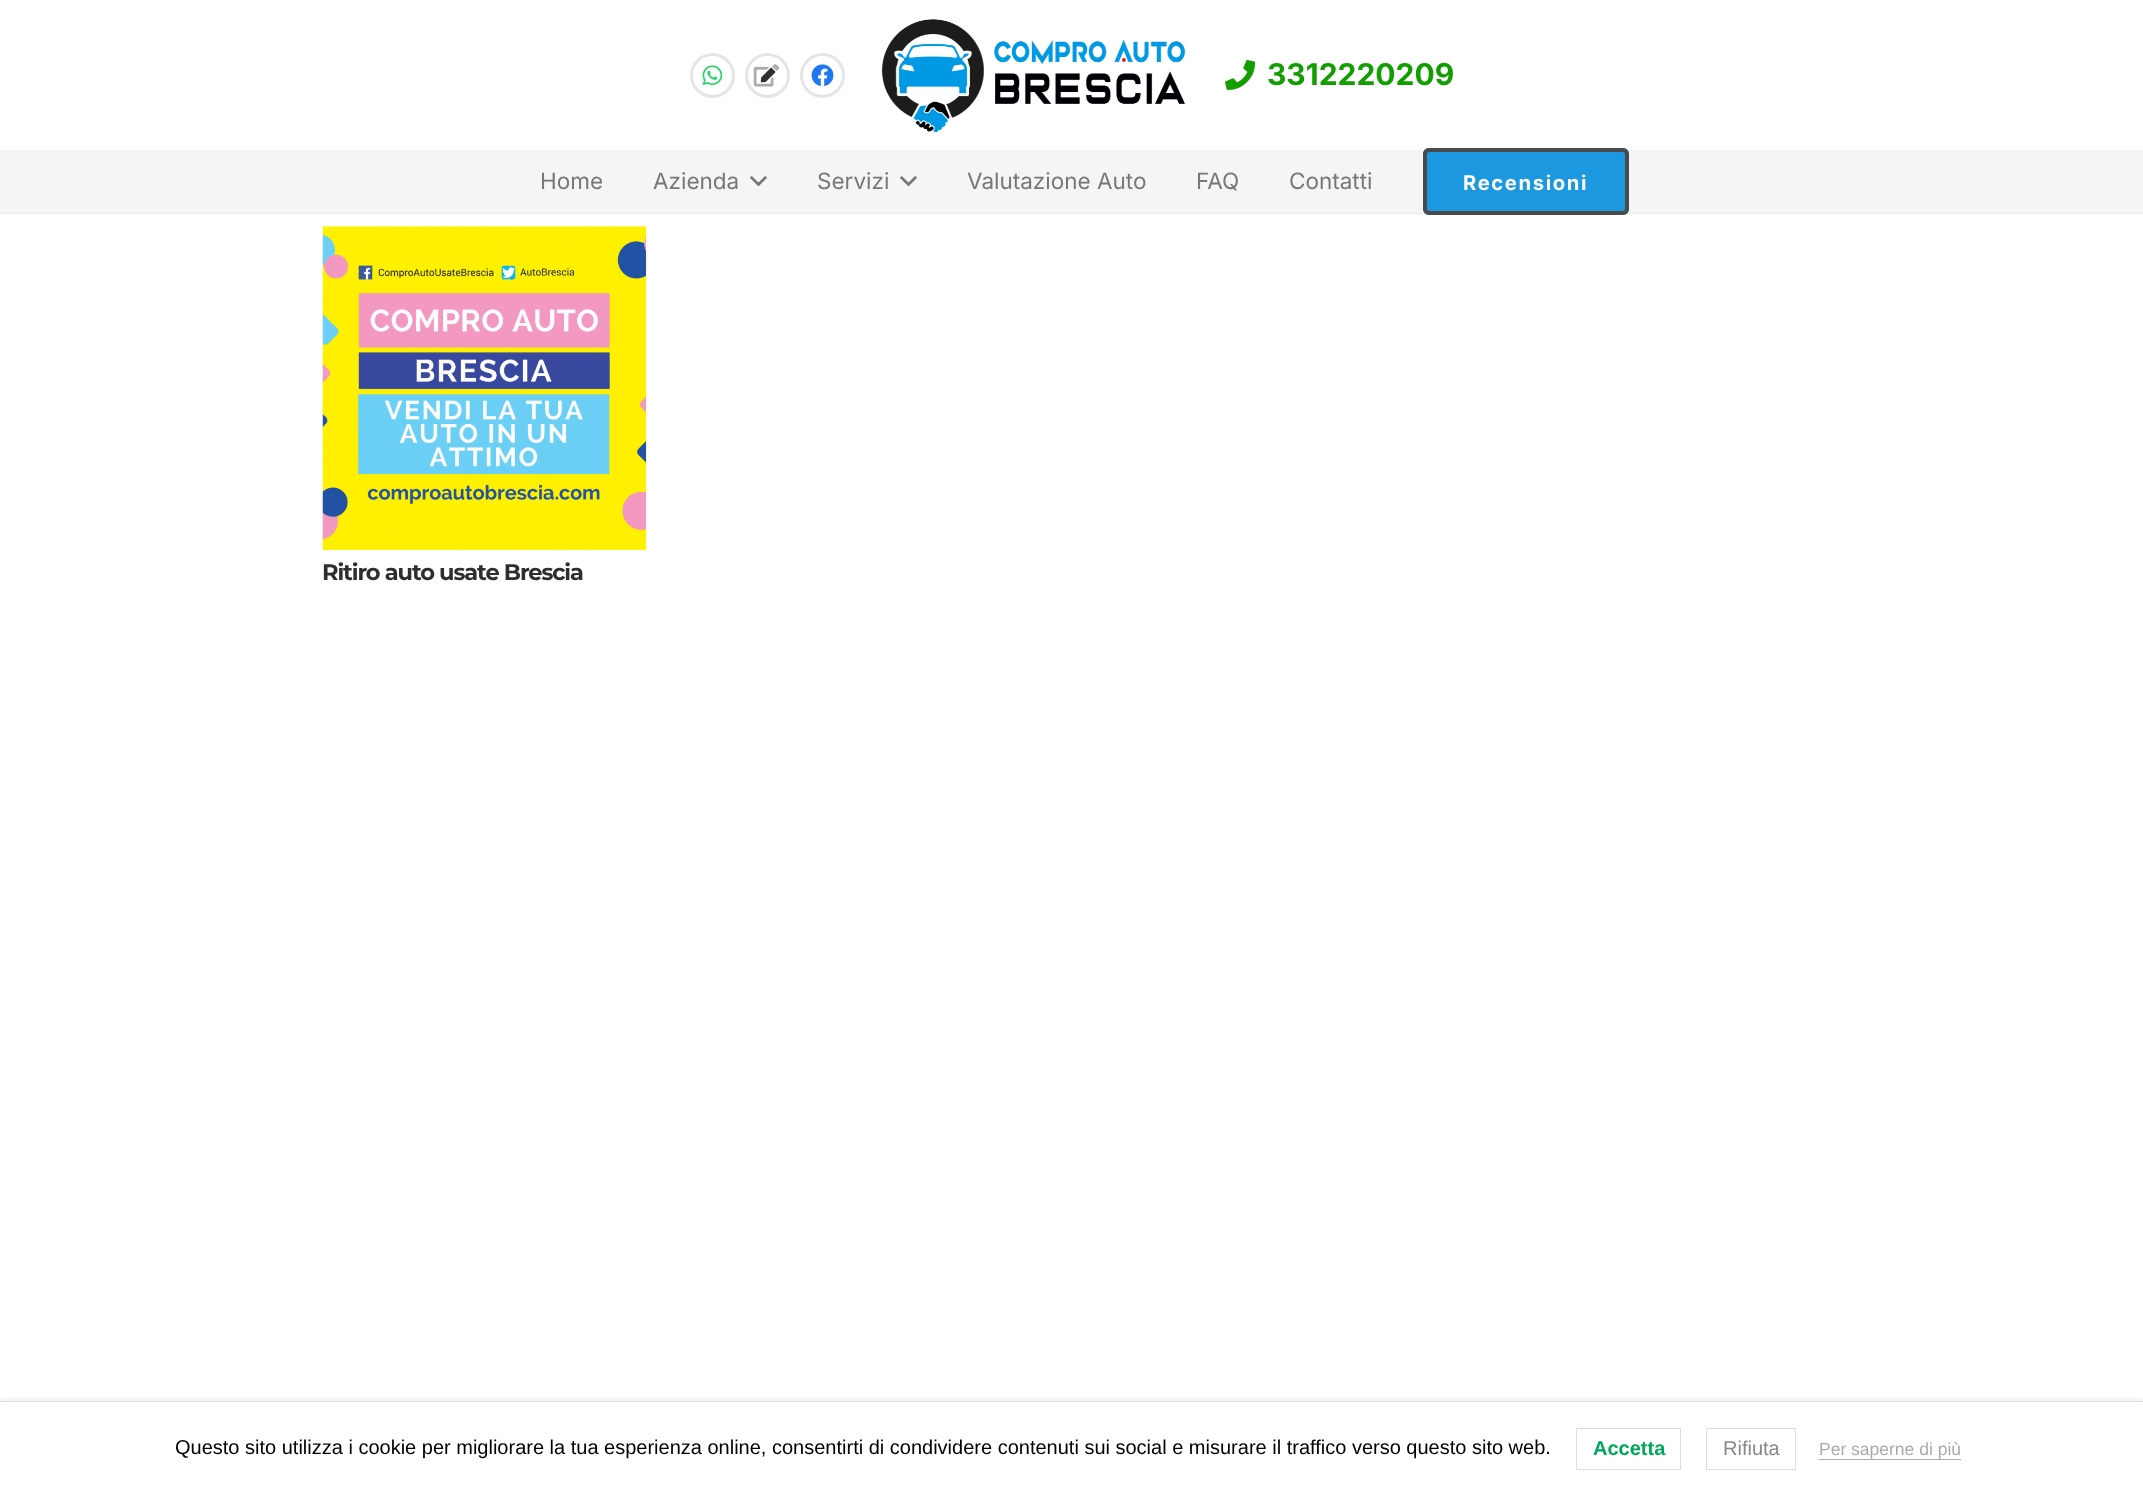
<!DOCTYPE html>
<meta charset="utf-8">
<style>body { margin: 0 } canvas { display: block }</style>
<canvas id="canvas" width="2143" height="1495"></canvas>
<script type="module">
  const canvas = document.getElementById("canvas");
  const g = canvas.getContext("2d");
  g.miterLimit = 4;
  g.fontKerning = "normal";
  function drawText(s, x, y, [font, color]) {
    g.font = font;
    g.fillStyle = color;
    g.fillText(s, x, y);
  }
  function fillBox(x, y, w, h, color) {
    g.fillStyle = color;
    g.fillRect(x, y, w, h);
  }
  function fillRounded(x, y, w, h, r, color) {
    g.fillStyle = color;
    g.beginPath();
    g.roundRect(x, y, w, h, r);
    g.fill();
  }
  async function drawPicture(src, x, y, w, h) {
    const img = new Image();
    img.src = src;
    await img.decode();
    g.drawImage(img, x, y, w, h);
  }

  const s1 = ["bold 30px Inter", "#129E00"];
  const s2 = ["22.5px Inter", "#777777"];
  const s3 = ["bold 20.25px Inter", "#FFFFFF"];
  const s4 = ["bold 22.5px Montserrat", "#2E2E2E"];
  const s5 = ["20px Liberation Sans", "#000000"];
  const s6 = ["bold 20px Liberation Sans", "#00A65A"];
  const s7 = ["20px Liberation Sans", "#888888"];
  const s8 = ["17.5px Liberation Sans", "#AAAAAA"];

  fillBox(0, 0, 2143, 1495, "#FFFFFF");
  g.beginPath();
  g.arc(712.5, 75.5, 21, 0, Math.PI * 2);
  g.strokeStyle = "#E5E5E5";
  g.lineWidth = 3;
  g.stroke();
  await drawPicture("pic1.png", 702, 65, 21, 21);
  g.beginPath();
  g.arc(767.5, 75.5, 21, 0, Math.PI * 2);
  g.stroke();
  await drawPicture("pic3.png", 760, 67, 16, 16);
  await drawPicture("pic2.png", 753, 64, 26, 23);
  g.beginPath();
  g.arc(822.5, 75.5, 21, 0, Math.PI * 2);
  g.stroke();
  await drawPicture("pic4.png", 811, 64, 23, 22);
  await drawPicture("pic5.png", 881, 19, 305, 114);
  await drawPicture("pic6.png", 1225, 60, 31, 30);
  drawText("3312220209", 1267, 85, s1);
  g.fillStyle = "#EBEBEB";
  g.beginPath();
  g.moveTo(0, 212);
  g.lineTo(0, 214);
  g.lineTo(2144, 214);
  g.lineTo(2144, 151);
  g.lineTo(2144, 212);
  g.closePath();
  g.fill();
  fillBox(0, 150, 2143, 63, "#F5F5F5");
  drawText("Home", 540, 189, s2);
  drawText("Azienda", 653, 189, s2);
  await drawPicture("pic7.png", 750, 176, 17, 11);
  drawText("Servizi", 817, 189, s2);
  await drawPicture("pic7.png", 900, 176, 17, 11);
  drawText("Valutazione Auto", 967, 189, s2);
  drawText("FAQ", 1196, 189, s2);
  drawText("Contatti", 1289, 189, s2);
  fillRounded(1423, 148, 206, 67, 6, "#1B98E0");
  g.beginPath();
  g.roundRect(1425, 150, 202, 63, 4);
  g.strokeStyle = "#4A4A4A";
  g.lineWidth = 4;
  g.stroke();
  g.letterSpacing = "1.6px";
  drawText("Recensioni", 1463, 190, s3);
  await drawPicture("pic8.png", 322, 226, 325, 324);
  g.letterSpacing = "-1.1px";
  drawText("Ritiro auto usate Brescia", 322, 580, s4);
  g.save();
  g.beginPath();
  g.rect(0, 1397, 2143, 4);
  g.clip();
  g.fillStyle = "rgba(0, 0, 0, 0.1)";
  g.filter = "blur(5px)";
  g.beginPath();
  g.rect(0, 1401, 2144, 94);
  g.fill();
  g.filter = "none";
  g.restore();
  fillBox(0, 1401, 2143, 1, "#DDDDDD");
  g.letterSpacing = "0px";
  drawText("Questo sito utilizza i cookie per migliorare la tua esperienza online, consentirti di condividere contenuti sui social e misurare il traffico verso questo sito web.", 175, 1454, s5);
  g.strokeStyle = "#DDDDDD";
  g.lineWidth = 1;
  g.strokeRect(1576.5, 1428.5, 104, 41);
  drawText("Accetta", 1593, 1455, s6);
  g.strokeRect(1706.5, 1428.5, 89, 41);
  drawText("Rifiuta", 1723, 1455, s7);
  drawText("Per saperne di più", 1819, 1455, s8);
  fillBox(1819, 1459, 142, 1, "#AAAAAA");
</script>
